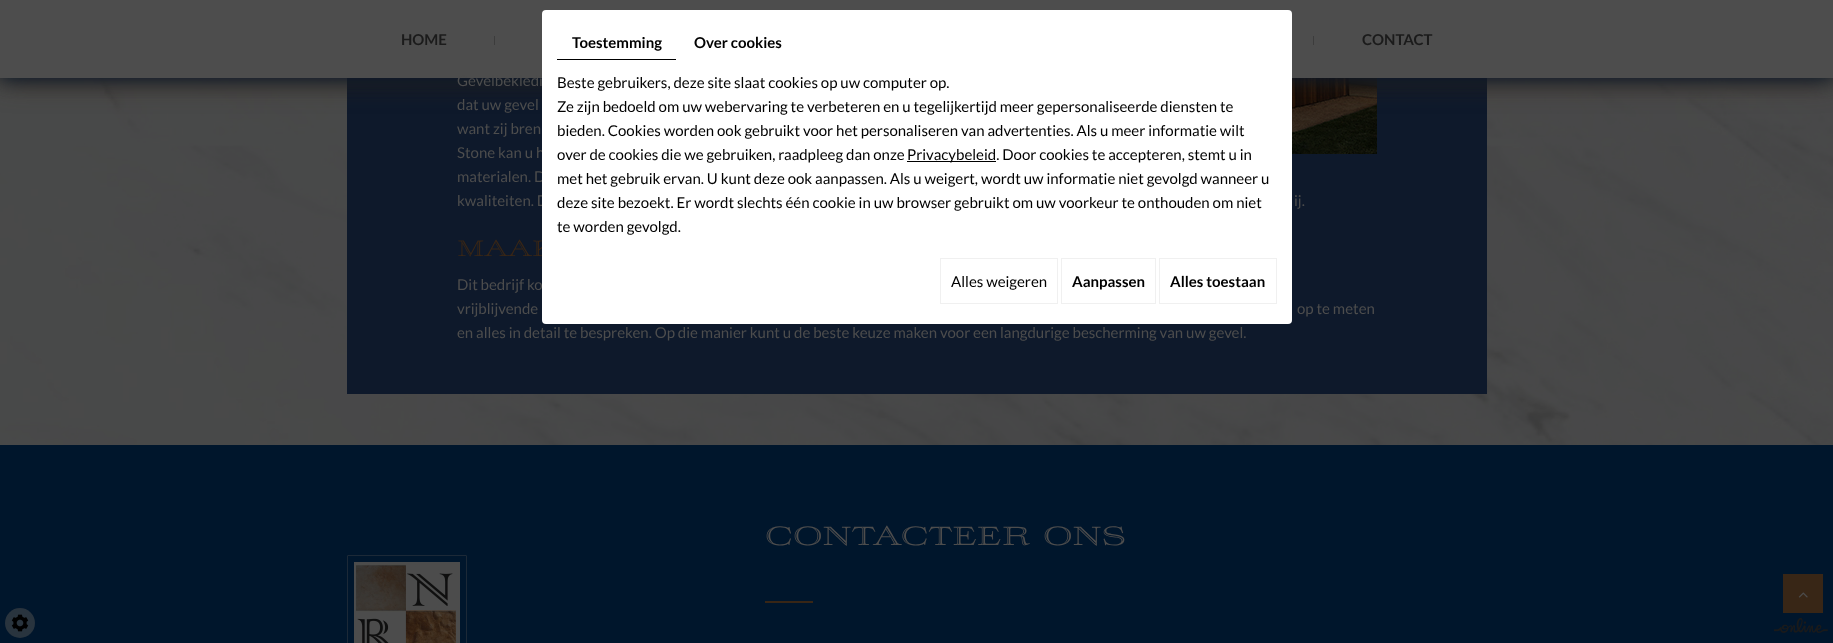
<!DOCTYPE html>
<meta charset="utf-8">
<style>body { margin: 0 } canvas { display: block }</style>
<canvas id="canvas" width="1833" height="643"></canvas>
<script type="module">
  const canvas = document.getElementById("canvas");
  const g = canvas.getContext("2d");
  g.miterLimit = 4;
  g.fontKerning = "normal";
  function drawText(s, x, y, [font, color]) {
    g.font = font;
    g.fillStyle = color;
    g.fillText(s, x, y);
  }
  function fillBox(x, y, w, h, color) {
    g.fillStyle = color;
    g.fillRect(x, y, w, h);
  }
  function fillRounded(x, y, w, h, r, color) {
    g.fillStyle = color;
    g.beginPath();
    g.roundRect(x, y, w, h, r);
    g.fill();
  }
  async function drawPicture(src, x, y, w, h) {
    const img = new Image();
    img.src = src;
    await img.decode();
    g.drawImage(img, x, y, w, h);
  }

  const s1 = ["bold 15px Lato", "#1B1B1B"];
  const s2 = ["15px Lato", "#4D4D4D"];
  const s3 = ["22px 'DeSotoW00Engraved'", "#382616"];
  const s4 = ["bold 15px Lato", "#000000"];
  const s5 = ["15px Lato", "#000000"];
  const s6 = ["26px 'DeSotoW00Engraved'", "#4D4D4D"];

  fillBox(0, 0, 1833, 643, "#FFFFFF");
  await drawPicture("pic1.png", 0, 78, 1833, 367);
  fillBox(347, 78, 1140, 316, "#0E192B");
  await drawPicture("pic2.png", 1292, 78, 85, 76);
  g.fillStyle = "#382616";
  g.filter = "blur(15px)";
  g.beginPath();
  g.rect(0, 0, 1833, 78);
  g.fill();
  g.filter = "none";
  fillBox(0, 0, 1833, 78, "#4D4D4D");
  g.save();
  g.beginPath();
  g.rect(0, 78, 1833, 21);
  g.clip();
  g.fillStyle = "#00152D";
  g.filter = "blur(10px)";
  g.beginPath();
  g.rect(0, 0, 1833, 78);
  g.fill();
  g.filter = "none";
  g.restore();
  drawText("HOME", 401, 45, s1);
  fillBox(494, 36, 1, 9, "#3C3C3C");
  fillBox(1313, 36, 1, 9, "#3C3C3C");
  drawText("CONTACT", 1362, 45, s1);
  drawText("Stone kan u h", 457, 158, s2);
  drawText("materialen. D", 457, 182, s2);
  drawText("kwaliteiten. D", 457, 206, s2);
  drawText("MAAK", 457, 256, s3);
  fillRounded(542, 10, 750, 314, 4, "#FFFFFF");
  fillBox(557, 59, 119, 1, "#000000");
  drawText("Toestemming", 572, 48, s4);
  drawText("Over cookies", 694, 48, s4);
  drawText("Beste gebruikers, deze site slaat cookies op uw computer op.", 557, 88, s5);
  drawText("Ze zijn bedoeld om uw webervaring te verbeteren en u tegelijkertijd meer gepersonaliseerde diensten te", 557, 112, s5);
  drawText("bieden. Cookies worden ook gebruikt voor het personaliseren van advertenties. Als u meer informatie wilt", 557, 136, s5);
  drawText("over de cookies die we gebruiken, raadpleeg dan onze", 557, 160, s5);
  fillBox(907, 161, 89, 1, "#000000");
  drawText("Privacybeleid. Door cookies te accepteren, stemt u in", 907, 160, s5);
  drawText("met het gebruik ervan. U kunt deze ook aanpassen. Als u weigert, wordt uw informatie niet gevolgd wanneer u", 557, 184, s5);
  drawText("deze site bezoekt. Er wordt slechts één cookie in uw browser gebruikt om uw voorkeur te onthouden om niet", 557, 208, s5);
  drawText("te worden gevolgd.", 557, 232, s5);
  g.strokeStyle = "#F0F0F0";
  g.strokeRect(940.5, 258.5, 117, 45);
  drawText("Alles weigeren", 951, 287, s5);
  g.strokeRect(1061.5, 258.5, 94, 45);
  drawText("Aanpassen", 1072, 287, s4);
  g.strokeRect(1159.5, 258.5, 117, 45);
  drawText("Alles toestaan", 1170, 287, s4);
  drawText("Gevelbekledi", 457, 86, s2);
  drawText("dat uw gevel", 457, 110, s2);
  drawText("want zij bren", 457, 134, s2);
  drawText("ij.", 1294, 206, s2);
  drawText("Dit bedrijf ko", 457, 290, s2);
  drawText("vrijblijvende", 457, 314, s2);
  drawText("op te meten", 1297, 314, s2);
  drawText("en alles in detail te bespreken. Op die manier kunt u de beste keuze maken voor een langdurige bescherming van uw gevel.", 457, 338, s2);
  fillBox(0, 445, 1833, 198, "#00162C");
  drawText("CONTACTEER ONS", 765, 545, s6);
  fillBox(765, 601, 48, 2, "#382616");
  await drawPicture("pic3.png", 347, 555, 120, 88);
  fillBox(1783, 574, 40, 39, "#382616");
  await drawPicture("pic4.png", 1798, 592, 10, 6);
  g.fillStyle = "#29343E";
  g.beginPath();
  g.arc(20, 623, 15, 0, Math.PI * 2);
  g.fill();
  await drawPicture("pic5.png", 11, 614, 18, 18);
  await drawPicture("pic6.png", 1774, 618, 54, 15);
</script>
